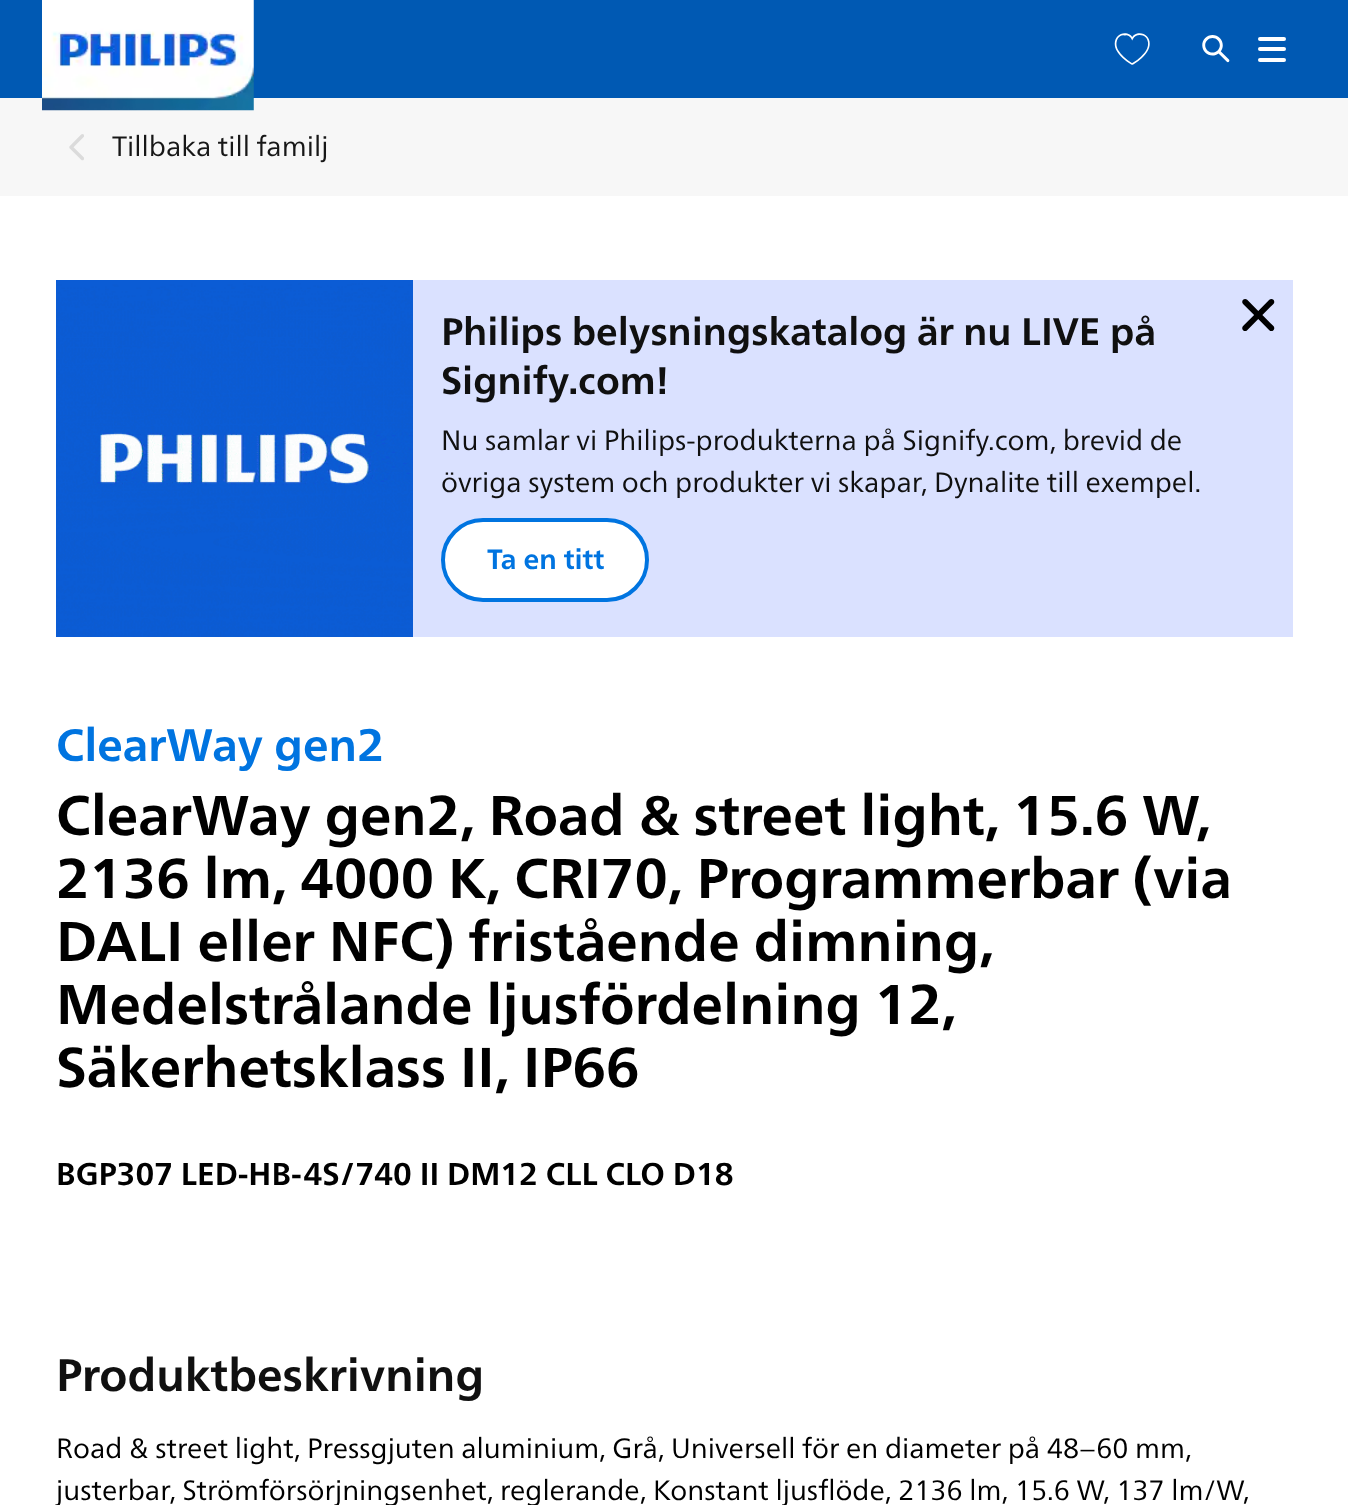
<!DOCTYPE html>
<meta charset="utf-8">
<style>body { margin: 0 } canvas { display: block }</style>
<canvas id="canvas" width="1348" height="1505"></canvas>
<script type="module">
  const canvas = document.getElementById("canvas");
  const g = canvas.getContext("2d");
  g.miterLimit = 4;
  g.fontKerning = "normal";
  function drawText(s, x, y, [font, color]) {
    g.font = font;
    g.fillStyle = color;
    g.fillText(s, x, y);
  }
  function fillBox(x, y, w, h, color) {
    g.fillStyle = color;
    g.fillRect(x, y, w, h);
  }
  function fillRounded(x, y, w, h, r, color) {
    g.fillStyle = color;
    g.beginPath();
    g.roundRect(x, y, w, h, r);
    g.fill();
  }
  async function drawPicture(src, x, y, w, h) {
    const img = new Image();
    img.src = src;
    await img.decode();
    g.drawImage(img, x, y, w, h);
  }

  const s1 = ["28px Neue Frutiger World", "#171717"];
  const s2 = ["bold 38.5px Neue Frutiger World", "#101010"];
  const s3 = ["28px Neue Frutiger World", "#101010"];
  const s4 = ["bold 28px Neue Frutiger World", "#0074E0"];
  const s5 = ["bold 45.5px Neue Frutiger World", "#0074E0"];
  const s6 = ["bold 56px Neue Frutiger World", "#000000"];
  const s7 = ["bold 31.5px Neue Frutiger World", "#000000"];
  const s8 = ["bold 45.5px Neue Frutiger World", "#101010"];
  const s9 = ["28px Neue Frutiger World", "#000000"];

  fillBox(0, 0, 1348, 1505, "#FFFFFF");
  fillBox(0, 0, 1348, 98, "#0059B3");
  fillBox(0, 98, 1348, 98, "#F7F7F7");
  await drawPicture("pic1.png", 42, 0, 212, 111);
  await drawPicture("pic2.png", 1114, 33, 36, 32);
  await drawPicture("pic3.png", 1202, 35, 28, 28);
  fillRounded(1258, 37, 28, 4, 2, "#FFFFFF");
  fillRounded(1258, 47, 28, 4, 2, "#FFFFFF");
  fillRounded(1258, 58, 28, 4, 2, "#FFFFFF");
  await drawPicture("pic4.png", 69, 134, 15, 27);
  drawText("Tillbaka till familj", 112, 156, s1);
  fillBox(413, 280, 880, 357, "#DAE1FF");
  await drawPicture("pic5.png", 56, 280, 357, 357);
  drawText("Philips belysningskatalog är nu LIVE på", 441, 345, s2);
  drawText("Signify.com!", 441, 394, s2);
  drawText("Nu samlar vi Philips-produkterna på Signify.com, brevid de", 441, 450, s3);
  drawText("övriga system och produkter vi skapar, Dynalite till exempel.", 441, 492, s3);
  g.fillStyle = "#FFFFFF";
  g.beginPath();
  g.roundRect(443, 520, 204, 80, 40);
  g.fill();
  g.strokeStyle = "#0074E0";
  g.lineWidth = 4;
  g.stroke();
  drawText("Ta en titt", 487, 569, s4);
  await drawPicture("pic6.png", 1242, 299, 33, 32);
  drawText("ClearWay gen2", 56, 761, s5);
  drawText("ClearWay gen2, Road & street light, 15.6 W,", 56, 835, s6);
  drawText("2136 lm, 4000 K, CRI70, Programmerbar (via", 56, 898, s6);
  drawText("DALI eller NFC) fristående dimning,", 56, 961, s6);
  drawText("Medelstrålande ljusfördelning 12,", 56, 1024, s6);
  drawText("Säkerhetsklass II, IP66", 56, 1087, s6);
  drawText("BGP307 LED-HB-4S/740 II DM12 CLL CLO D18", 56, 1185, s7);
  drawText("Produktbeskrivning", 56, 1391, s8);
  drawText("Road & street light, Pressgjuten aluminium, Grå, Universell för en diameter på 48–60 mm,", 56, 1458, s9);
  drawText("justerbar, Strömförsörjningsenhet, reglerande, Konstant ljusflöde, 2136 lm, 15.6 W, 137 lm/W,", 56, 1500, s9);
</script>
